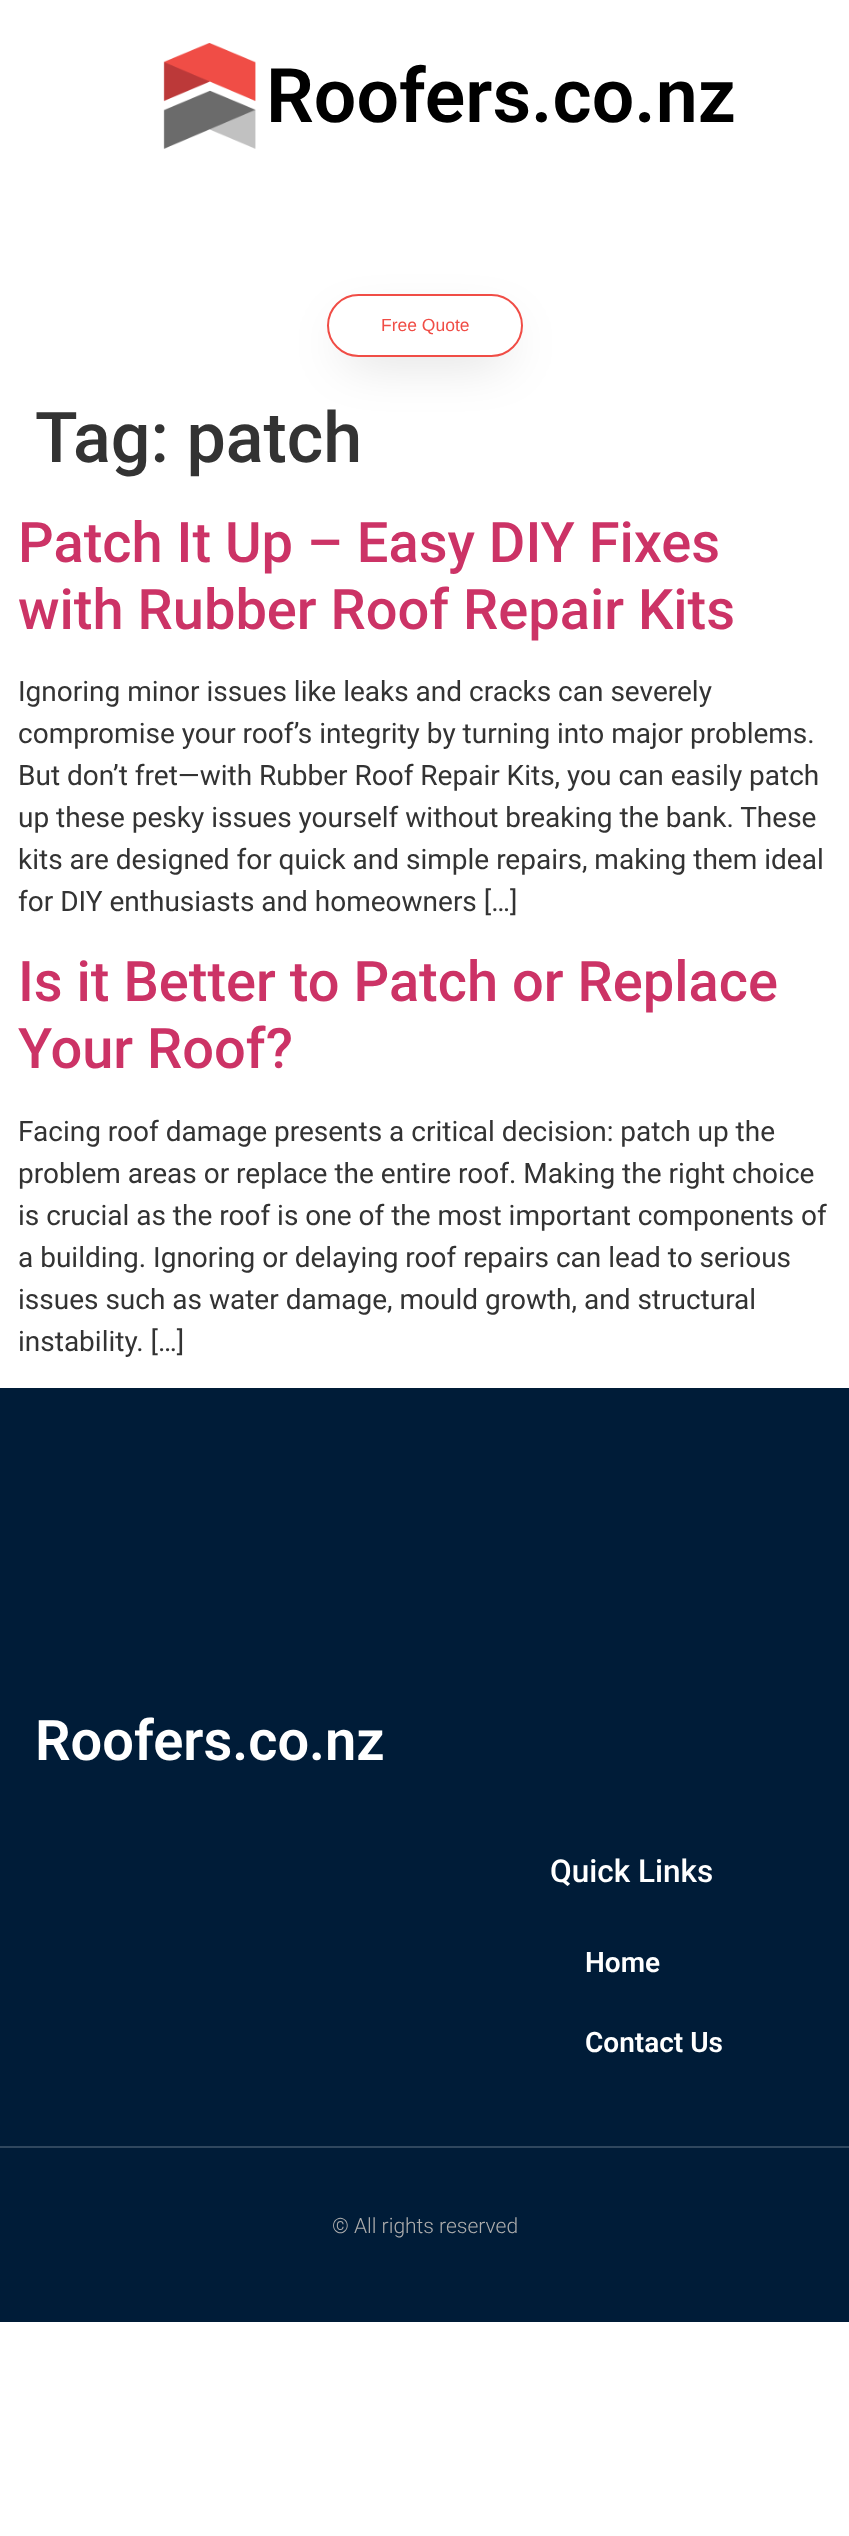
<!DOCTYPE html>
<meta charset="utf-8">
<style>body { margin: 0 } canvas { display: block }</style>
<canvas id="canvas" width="849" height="2536"></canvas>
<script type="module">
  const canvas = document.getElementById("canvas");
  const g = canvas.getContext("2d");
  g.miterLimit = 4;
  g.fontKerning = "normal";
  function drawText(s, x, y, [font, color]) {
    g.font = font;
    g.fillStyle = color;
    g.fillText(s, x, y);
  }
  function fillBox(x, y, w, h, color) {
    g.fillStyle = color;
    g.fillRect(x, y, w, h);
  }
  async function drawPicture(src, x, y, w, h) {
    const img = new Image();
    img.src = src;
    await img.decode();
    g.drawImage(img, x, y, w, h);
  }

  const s1 = ["600 75.25px Roboto", "#000000"];
  const s2 = ["17.5px Liberation Sans", "#F04D46"];
  const s3 = ["500 70px Roboto", "#333333"];
  const s4 = ["500 56px Roboto", "#CC3366"];
  const s5 = ["28px Roboto", "#333333"];
  const s6 = ["600 56px Roboto", "#FFFFFF"];
  const s7 = ["500 31.5px Roboto", "#FFFFFF"];
  const s8 = ["600 28px Roboto", "#FFFFFF"];
  const s9 = ["300 21px Roboto", "#ADADAD"];

  fillBox(0, 0, 849, 2536, "#FFFFFF");
  await drawPicture("pic1.png", 163, 43, 93, 106);
  drawText("Roofers.co.nz", 266, 122, s1);
  g.save();
  g.beginPath();
  g.moveTo(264, 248);
  g.lineTo(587, 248);
  g.lineTo(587, 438);
  g.lineTo(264, 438);
  g.closePath();
  g.moveTo(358.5, 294);
  g.lineTo(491.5, 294);
  g.bezierCurveTo(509, 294, 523, 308, 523, 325.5);
  g.bezierCurveTo(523, 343, 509, 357, 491.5, 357);
  g.lineTo(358.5, 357);
  g.bezierCurveTo(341, 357, 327, 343, 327, 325.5);
  g.bezierCurveTo(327, 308, 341, 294, 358.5, 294);
  g.closePath();
  g.clip("evenodd");
  g.fillStyle = "rgba(0, 0, 0, 0.16)";
  g.filter = "blur(26px)";
  g.beginPath();
  g.roundRect(343, 327, 165, 32, 16);
  g.fill();
  g.filter = "none";
  g.restore();
  g.beginPath();
  g.roundRect(328, 295, 194, 61, 30.5);
  g.strokeStyle = "#F04D46";
  g.lineWidth = 2;
  g.stroke();
  drawText("Free Quote", 381, 331, s2);
  drawText("Tag: patch", 35, 462, s3);
  drawText("Patch It Up – Easy DIY Fixes", 18, 562, s4);
  drawText("with Rubber Roof Repair Kits", 18, 629, s4);
  drawText("Ignoring minor issues like leaks and cracks can severely", 18, 701, s5);
  drawText("compromise your roof’s integrity by turning into major problems.", 18, 743, s5);
  drawText("But don’t fret—with Rubber Roof Repair Kits, you can easily patch", 18, 785, s5);
  drawText("up these pesky issues yourself without breaking the bank. These", 18, 827, s5);
  drawText("kits are designed for quick and simple repairs, making them ideal", 18, 869, s5);
  drawText("for DIY enthusiasts and homeowners […]", 18, 911, s5);
  drawText("Is it Better to Patch or Replace", 18, 1001, s4);
  drawText("Your Roof?", 18, 1068, s4);
  drawText("Facing roof damage presents a critical decision: patch up the", 18, 1141, s5);
  drawText("problem areas or replace the entire roof. Making the right choice", 18, 1183, s5);
  drawText("is crucial as the roof is one of the most important components of", 18, 1225, s5);
  drawText("a building. Ignoring or delaying roof repairs can lead to serious", 18, 1267, s5);
  drawText("issues such as water damage, mould growth, and structural", 18, 1309, s5);
  drawText("instability. […]", 18, 1351, s5);
  fillBox(0, 1388, 849, 758, "#001C38");
  drawText("Roofers.co.nz", 35, 1760, s6);
  drawText("Quick Links", 550, 1882, s7);
  drawText("Home", 585, 1972, s8);
  drawText("Contact Us", 585, 2052, s8);
  fillBox(0, 2148, 849, 174, "#001C38");
  fillBox(0, 2146, 849, 2, "#30475E");
  drawText("© All rights reserved", 332, 2233, s9);
</script>
